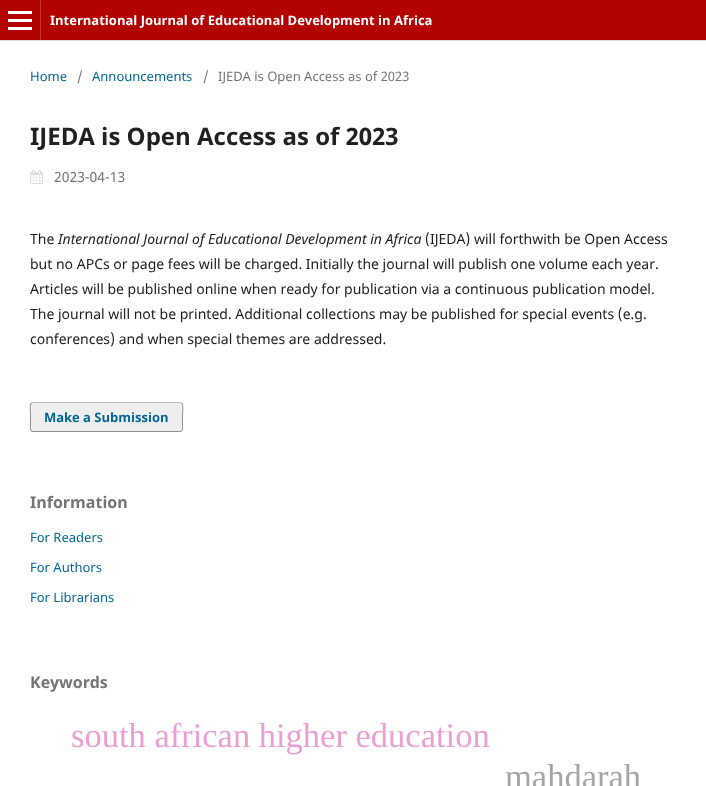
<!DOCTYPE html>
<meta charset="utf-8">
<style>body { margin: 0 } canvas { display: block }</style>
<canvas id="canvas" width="706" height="786"></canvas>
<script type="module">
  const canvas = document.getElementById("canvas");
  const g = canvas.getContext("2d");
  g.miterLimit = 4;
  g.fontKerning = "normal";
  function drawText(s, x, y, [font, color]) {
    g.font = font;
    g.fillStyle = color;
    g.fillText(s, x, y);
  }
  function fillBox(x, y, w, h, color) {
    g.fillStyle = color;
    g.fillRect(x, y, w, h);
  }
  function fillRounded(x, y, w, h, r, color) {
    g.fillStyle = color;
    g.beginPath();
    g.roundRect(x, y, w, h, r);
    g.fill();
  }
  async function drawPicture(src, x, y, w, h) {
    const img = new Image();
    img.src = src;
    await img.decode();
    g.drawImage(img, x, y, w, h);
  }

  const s1 = ["bold 13px Noto Sans", "#FFFFFF"];
  const s2 = ["13px Noto Sans", "#006798"];
  const s3 = ["13px Noto Sans", "#757575"];
  const s4 = ["bold 24px Noto Sans", "#212121"];
  const s5 = ["14px Noto Sans", "#757575"];
  const s6 = ["14px Noto Sans", "#212121"];
  const s7 = ["italic 14px Noto Sans", "#212121"];
  const s8 = ["bold 13px Noto Sans", "#006798"];
  const s9 = ["bold 16px Noto Sans", "#757575"];
  const s10 = ["34.5px Liberation Serif", "#EBA0D4"];
  const s11 = ["34.5px Liberation Serif", "#A5A5A5"];

  fillBox(0, 0, 706, 786, "#FFFFFF");
  fillBox(0, 0, 706, 40, "#B30202");
  fillBox(0, 40, 706, 1, "#DDDDDD");
  fillBox(40, 0, 1, 40, "#C23535");
  fillBox(8, 27, 24, 3, "#FFFFFF");
  fillBox(8, 11, 24, 3, "#FFFFFF");
  fillBox(8, 19, 24, 3, "#FFFFFF");
  drawText("International Journal of Educational Development in Africa", 50, 25, s1);
  drawText("Home", 30, 81, s2);
  drawText("/", 77, 81, s3);
  drawText("Announcements", 92, 81, s2);
  drawText("/", 203, 81, s3);
  drawText("IJEDA is Open Access as of 2023", 218, 81, s3);
  drawText("IJEDA is Open Access as of 2023", 30, 145, s4);
  await drawPicture("pic1.png", 30, 170, 13, 14);
  drawText("2023-04-13", 54, 182, s5);
  drawText("The", 30, 244, s6);
  drawText("International Journal of Educational Development in Africa", 58, 244, s7);
  drawText("(IJEDA) will forthwith be Open Access", 425, 244, s6);
  drawText("but no APCs or page fees will be charged. Initially the journal will publish one volume each year.", 30, 269, s6);
  drawText("Articles will be published online when ready for publication via a continuous publication model.", 30, 294, s6);
  drawText("The journal will not be printed. Additional collections may be published for special events (e.g.", 30, 319, s6);
  drawText("conferences) and when special themes are addressed.", 30, 344, s6);
  fillRounded(30, 402, 153, 30, 3, "#EEEEEE");
  g.beginPath();
  g.moveTo(31, 403);
  g.lineTo(33, 402.5);
  g.lineTo(180, 402.5);
  g.lineTo(182, 403);
  g.strokeStyle = "#BBBBBB";
  g.stroke();
  g.beginPath();
  g.moveTo(182, 403);
  g.bezierCurveTo(183.5, 405, 182.5, 414.5, 182.5, 417);
  g.lineTo(182.5, 425);
  g.bezierCurveTo(182.5, 427, 183.5, 431.5, 180, 431.5);
  g.lineTo(33, 431.5);
  g.bezierCurveTo(29.5, 431.5, 30.5, 427, 30.5, 425);
  g.lineTo(30.5, 417);
  g.bezierCurveTo(30.5, 414.5, 29.5, 405, 31, 403);
  g.strokeStyle = "rgba(0, 0, 0, 0.4)";
  g.stroke();
  drawText("Make a Submission", 44, 422, s8);
  drawText("Information", 30, 508, s9);
  drawText("For Readers", 30, 542, s2);
  drawText("For Authors", 30, 572, s2);
  drawText("For Librarians", 30, 602, s2);
  drawText("Keywords", 30, 688, s9);
  drawText("south african higher education", 71, 747, s10);
  drawText("mahdarah", 505, 788, s11);
</script>
